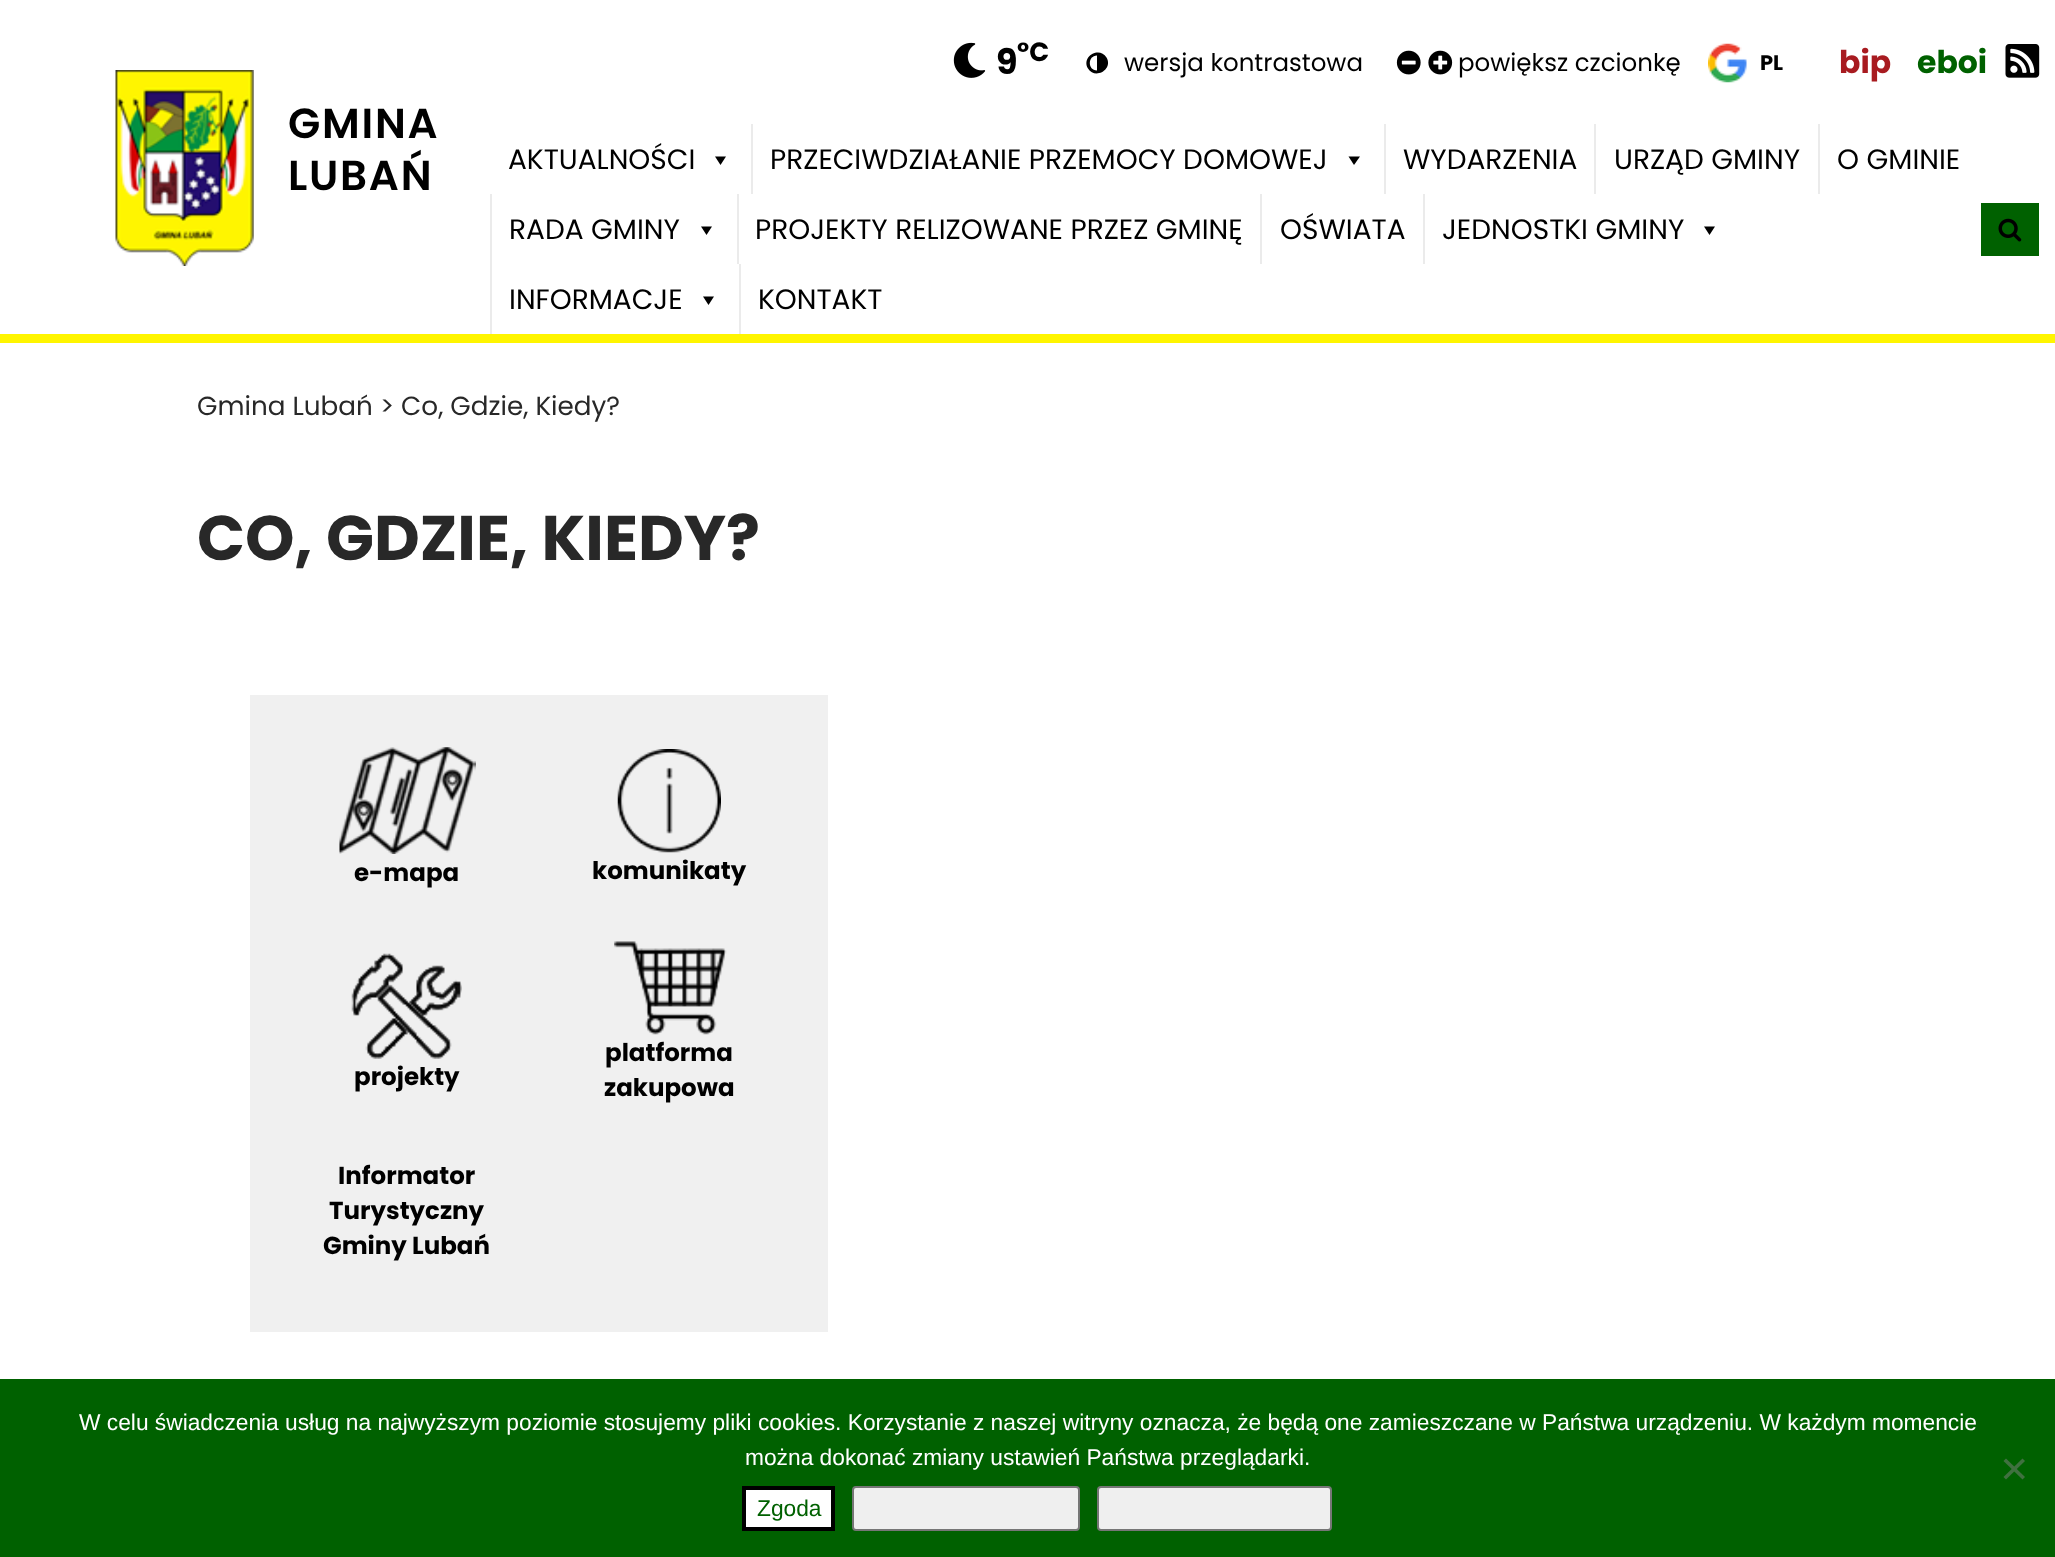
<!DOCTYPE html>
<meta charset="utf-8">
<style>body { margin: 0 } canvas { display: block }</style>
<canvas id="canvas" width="2055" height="1557"></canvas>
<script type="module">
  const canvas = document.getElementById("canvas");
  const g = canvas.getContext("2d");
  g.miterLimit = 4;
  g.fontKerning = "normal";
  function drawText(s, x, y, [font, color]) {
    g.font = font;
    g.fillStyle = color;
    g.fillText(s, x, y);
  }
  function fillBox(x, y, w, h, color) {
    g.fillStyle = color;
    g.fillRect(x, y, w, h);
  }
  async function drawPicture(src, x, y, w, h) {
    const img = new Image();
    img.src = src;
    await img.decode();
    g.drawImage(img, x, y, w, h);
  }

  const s1 = ["600 42px Poppins", "#000000"];
  const s2 = ["bold 35px Poppins", "#000000"];
  const s3 = ["bold 26.25px Poppins", "#000000"];
  const s4 = ["24.5px Poppins", "#000000"];
  const s5 = ["bold 21px Poppins", "#000000"];
  const s6 = ["bold 31.5px Poppins", "#A81B20"];
  const s7 = ["bold 31.5px Poppins", "#006100"];
  const s8 = ["28px Poppins", "#000000"];
  const s9 = ["26.25px Poppins", "#282828"];
  const s10 = ["bold 63px Poppins", "#282828"];
  const s11 = ["bold 24.5px Poppins", "#000000"];
  const s12 = ["22.75px Liberation Sans", "#FFFFFF"];
  const s13 = ["22.75px Liberation Sans", "#006100"];

  fillBox(0, 0, 2055, 1557, "#FFFFFF");
  fillBox(0, 334, 2055, 9, "#FFF500");
  await drawPicture("pic1.png", 115, 70, 139, 196);
  g.letterSpacing = "1.75px";
  drawText("GMINA", 288, 138, s1);
  drawText("LUBAŃ", 288, 190, s1);
  await drawPicture("pic2.png", 953, 42, 33, 36);
  g.letterSpacing = "0px";
  drawText("9", 996, 74, s2);
  drawText("°C", 1017, 61, s3);
  g.beginPath();
  g.moveTo(1097, 70.5);
  g.lineTo(1097, 55.5);
  g.bezierCurveTo(1087.5, 55.5, 1087.5, 70.5, 1097, 70.5);
  g.closePath();
  g.moveTo(1106.5, 57.5);
  g.bezierCurveTo(1113.5, 69.5, 1095, 80, 1088, 68.5);
  g.bezierCurveTo(1081, 56.5, 1099.5, 46, 1106.5, 57.5);
  g.closePath();
  g.fill();
  drawText("wersja kontrastowa", 1124, 71, s4);
  await drawPicture("pic3.png", 1396, 50, 25, 25);
  await drawPicture("pic4.png", 1428, 50, 25, 25);
  drawText("powiększ czcionkę", 1458, 71, s4);
  await drawPicture("pic5.png", 1708, 43, 39, 40);
  drawText("PL", 1760, 70, s5);
  drawText("bip", 1839, 73, s6);
  drawText("eboi", 1917, 73, s7);
  await drawPicture("pic6.png", 2005, 44, 35, 34);
  drawText("AKTUALNOŚCI", 508, 169, s8);
  g.beginPath();
  g.moveTo(726, 156.5);
  g.lineTo(720.5, 165);
  g.lineTo(715, 156.5);
  g.closePath();
  g.fill();
  fillBox(751, 124, 2, 70, "#EBEBEB");
  drawText("PRZECIWDZIAŁANIE PRZEMOCY DOMOWEJ", 770, 169, s8);
  g.beginPath();
  g.moveTo(1360, 156.5);
  g.lineTo(1354, 165);
  g.lineTo(1348.5, 156.5);
  g.closePath();
  g.fill();
  fillBox(1384, 124, 2, 70, "#EBEBEB");
  drawText("WYDARZENIA", 1403, 169, s8);
  fillBox(1594, 124, 2, 70, "#EBEBEB");
  drawText("URZĄD GMINY", 1614, 169, s8);
  fillBox(1818, 124, 2, 70, "#EBEBEB");
  drawText("O GMINIE", 1837, 169, s8);
  fillBox(490, 194, 2, 140, "#EBEBEB");
  drawText("RADA GMINY", 509, 239, s8);
  g.beginPath();
  g.moveTo(712, 226.5);
  g.lineTo(706.5, 235);
  g.lineTo(701, 226.5);
  g.closePath();
  g.fill();
  fillBox(737, 194, 2, 70, "#EBEBEB");
  drawText("PROJEKTY RELIZOWANE PRZEZ GMINĘ", 755, 239, s8);
  fillBox(1260, 194, 2, 70, "#EBEBEB");
  drawText("OŚWIATA", 1280, 239, s8);
  fillBox(1423, 194, 2, 70, "#EBEBEB");
  drawText("JEDNOSTKI GMINY", 1442, 239, s8);
  g.beginPath();
  g.moveTo(1715, 226.5);
  g.lineTo(1709.5, 235);
  g.lineTo(1704, 226.5);
  g.closePath();
  g.fill();
  drawText("INFORMACJE", 509, 309, s8);
  g.beginPath();
  g.moveTo(714, 296.5);
  g.lineTo(708.5, 305);
  g.lineTo(703, 296.5);
  g.closePath();
  g.fill();
  fillBox(739, 264, 2, 70, "#EBEBEB");
  drawText("KONTAKT", 758, 309, s8);
  fillBox(1981, 203, 58, 53, "#006100");
  await drawPicture("pic7.png", 1998, 218, 24, 24);
  drawText("Gmina Lubań > Co, Gdzie, Kiedy?", 197, 415, s9);
  drawText("CO, GDZIE, KIEDY?", 197, 560, s10);
  fillBox(250, 695, 578, 637, "#F0F0F0");
  await drawPicture("pic8.png", 339, 747, 137, 107);
  drawText("e-mapa", 354, 881, s11);
  await drawPicture("pic9.png", 617, 749, 104, 104);
  drawText("komunikaty", 592, 879, s11);
  await drawPicture("pic10.png", 351, 953, 111, 106);
  drawText("projekty", 354, 1085, s11);
  await drawPicture("pic11.png", 614, 941, 113, 94);
  drawText("platforma", 605, 1061, s11);
  drawText("zakupowa", 604, 1096, s11);
  drawText("Informator", 338, 1184, s11);
  drawText("Turystyczny", 329, 1219, s11);
  drawText("Gminy Lubań", 323, 1254, s11);
  fillBox(0, 1379, 2055, 178, "#006100");
  drawText("W celu świadczenia usług na najwyższym poziomie stosujemy pliki cookies. Korzystanie z naszej witryny oznacza, że będą one zamieszczane w Państwa urządzeniu. W każdym momencie", 79, 1430, s12);
  drawText("można dokonać zmiany ustawień Państwa przeglądarki.", 745, 1465, s12);
  g.fillStyle = "#407140";
  g.beginPath();
  g.moveTo(2022.5, 1458.5);
  g.lineTo(2025, 1461);
  g.lineTo(2006, 1479.5);
  g.lineTo(2003.5, 1477);
  g.closePath();
  g.fill();
  g.beginPath();
  g.moveTo(2003.5, 1461);
  g.lineTo(2006, 1458.5);
  g.lineTo(2025, 1477);
  g.lineTo(2022.5, 1479.5);
  g.closePath();
  g.fill();
  g.fillStyle = "#FFFFFF";
  g.beginPath();
  g.rect(744, 1488, 89, 41);
  g.fill();
  g.strokeStyle = "#000000";
  g.lineWidth = 4;
  g.stroke();
  drawText("Zgoda", 757, 1516, s13);
  g.fillStyle = "#EFEFEF";
  g.beginPath();
  g.roundRect(853, 1487, 226, 43, 3);
  g.fill();
  g.strokeStyle = "#767676";
  g.lineWidth = 2;
  g.stroke();
  g.beginPath();
  g.roundRect(1098, 1487, 233, 43, 3);
  g.fill();
  g.stroke();
</script>
